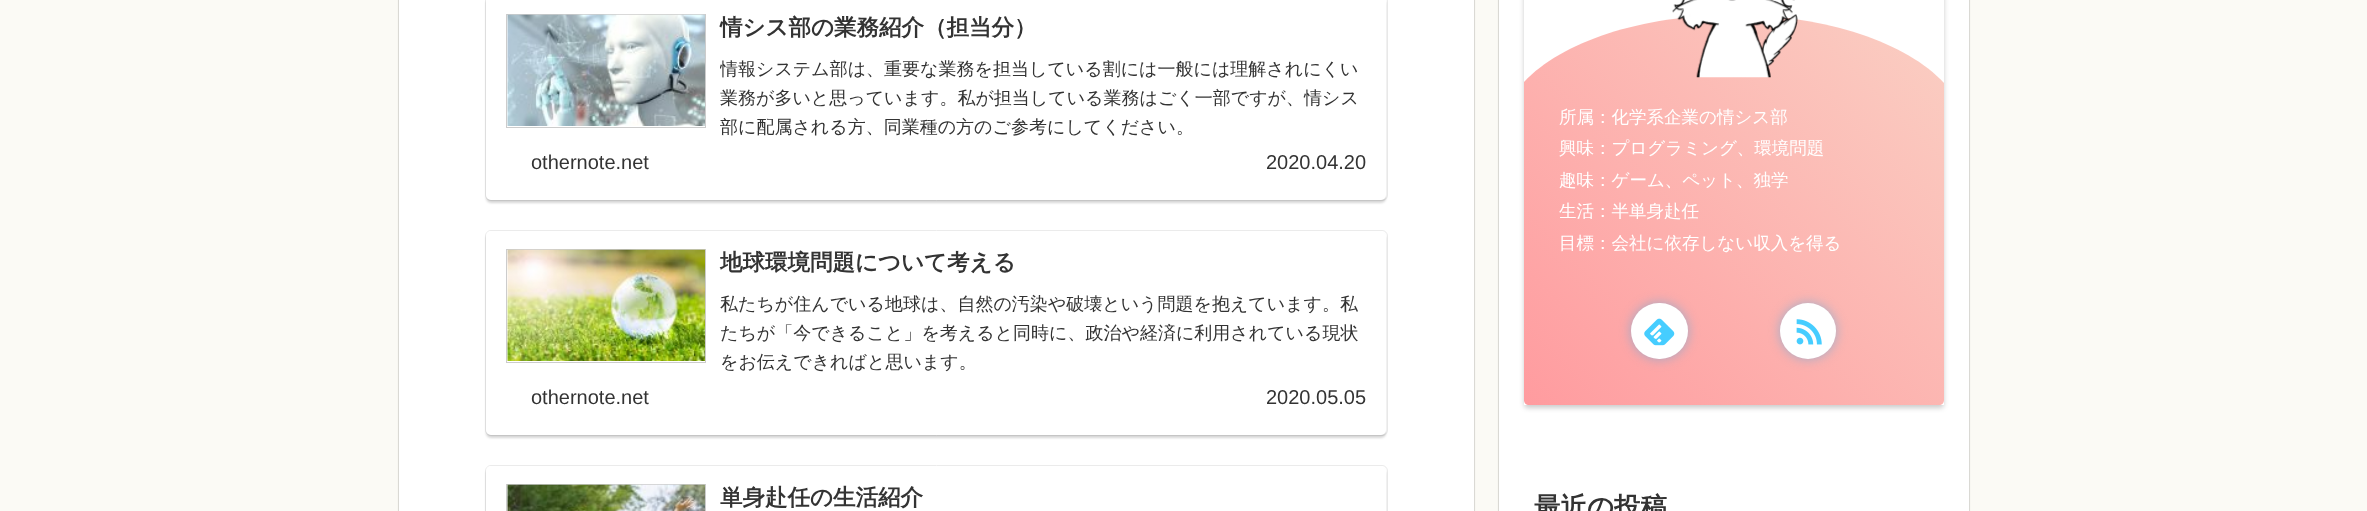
<!DOCTYPE html>
<meta charset="utf-8">
<style>body { margin: 0 } canvas { display: block }</style>
<canvas id="canvas" width="2367" height="511"></canvas>
<script type="module">
  const canvas = document.getElementById("canvas");
  const g = canvas.getContext("2d");
  g.miterLimit = 4;
  g.fontKerning = "normal";
  function drawText(s, x, y, [font, color]) {
    g.font = font;
    g.fillStyle = color;
    g.fillText(s, x, y);
  }
  function fillBox(x, y, w, h, color) {
    g.fillStyle = color;
    g.fillRect(x, y, w, h);
  }
  function fillRounded(x, y, w, h, r, color) {
    g.fillStyle = color;
    g.beginPath();
    g.roundRect(x, y, w, h, r);
    g.fill();
  }
  async function drawPicture(src, x, y, w, h) {
    const img = new Image();
    img.src = src;
    await img.decode();
    g.drawImage(img, x, y, w, h);
  }
  let gradient;

  const s1 = ["bold 22.5px WenQuanYi Zen Hei", "#333333"];
  const s2 = ["500 18px WenQuanYi Zen Hei", "#333333"];
  const s3 = ["20px Liberation Sans", "#333333"];
  const s4 = ["500 17.5px WenQuanYi Zen Hei", "#FFFFFF"];
  const s5 = ["bold 26.5px WenQuanYi Zen Hei", "#333333"];

  fillBox(0, 0, 2367, 511, "#FBFAF5");
  g.strokeStyle = "#E7E6E1";
  g.strokeRect(398.5, -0.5, 1076, 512);
  g.fillStyle = "rgba(0, 0, 0, 0.16)";
  g.filter = "blur(1px)";
  g.beginPath();
  g.roundRect(399, -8, 1075, 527, 5);
  g.fill();
  g.filter = "none";
  fillBox(399, 0, 1075, 511, "#FFFFFF");
  g.beginPath();
  g.roundRect(485.5, -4.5, 902, 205, 5.5);
  g.strokeStyle = "#EBEBEB";
  g.stroke();
  g.fillStyle = "rgba(0, 0, 0, 0.16)";
  g.filter = "blur(1px)";
  g.beginPath();
  g.roundRect(486, -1, 900, 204, 5);
  g.fill();
  g.filter = "none";
  fillRounded(486, -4, 900, 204, 5, "#FFFFFF");
  g.strokeStyle = "#CCCCCC";
  g.strokeRect(506.5, 14.5, 199, 113);
  await drawPicture("pic1.png", 507, 14, 198, 112);
  drawText("情シス部の業務紹介（担当分）", 720, 35, s1);
  g.save();
  g.beginPath();
  g.rect(720, 10, 646, 131);
  g.clip();
  drawText("情報システム部は、重要な業務を担当している割には一般には理解されにくい", 720, 75, s2);
  g.restore();
  drawText("業務が多いと思っています。私が担当している業務はごく一部ですが、情シス", 720, 104, s2);
  drawText("部に配属される方、同業種の方のご参考にしてください。", 720, 133, s2);
  drawText("othernote.net", 531, 169, s3);
  drawText("2020.04.20", 1266, 169, s3);
  g.beginPath();
  g.roundRect(485.5, 230.5, 902, 205, 5.5);
  g.strokeStyle = "#EBEBEB";
  g.stroke();
  g.fillStyle = "rgba(0, 0, 0, 0.16)";
  g.filter = "blur(1px)";
  g.beginPath();
  g.roundRect(486, 234, 900, 204, 5);
  g.fill();
  g.filter = "none";
  fillRounded(486, 231, 900, 204, 5, "#FFFFFF");
  g.strokeStyle = "#CCCCCC";
  g.strokeRect(506.5, 249.5, 199, 113);
  await drawPicture("pic2.png", 507, 249, 198, 112);
  drawText("地球環境問題について考える", 720, 270, s1);
  drawText("私たちが住んでいる地球は、自然の汚染や破壊という問題を抱えています。私", 720, 310, s2);
  drawText("たちが「今できること」を考えると同時に、政治や経済に利用されている現状", 720, 339, s2);
  drawText("をお伝えできればと思います。", 720, 368, s2);
  drawText("othernote.net", 531, 404, s3);
  drawText("2020.05.05", 1266, 404, s3);
  g.beginPath();
  g.roundRect(485.5, 465.5, 902, 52, 5.5);
  g.strokeStyle = "#EBEBEB";
  g.stroke();
  g.fillStyle = "rgba(0, 0, 0, 0.16)";
  g.filter = "blur(1px)";
  g.beginPath();
  g.roundRect(486, 469, 900, 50, 5);
  g.fill();
  g.filter = "none";
  fillRounded(486, 466, 900, 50, 5, "#FFFFFF");
  g.strokeStyle = "#CCCCCC";
  g.strokeRect(506.5, 484.5, 199, 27);
  await drawPicture("pic3.png", 507, 484, 198, 27);
  drawText("単身赴任の生活紹介", 720, 505, s1);
  g.strokeStyle = "#E7E6E1";
  g.strokeRect(1498.5, -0.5, 471, 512);
  g.fillStyle = "rgba(0, 0, 0, 0.16)";
  g.filter = "blur(1px)";
  g.beginPath();
  g.roundRect(1499, -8, 470, 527, 5);
  g.fill();
  g.filter = "none";
  fillBox(1499, 0, 470, 511, "#FFFFFF");
  g.fillStyle = "rgba(0, 0, 0, 0.2)";
  g.filter = "blur(2.5px)";
  g.beginPath();
  g.roundRect(1524, -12, 420, 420, 4);
  g.fill();
  g.filter = "none";
  fillBox(1524, 0, 420, 405, "#FFFFFF");
  gradient = g.createLinearGradient(1521, 423, 1947, -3.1);
  gradient.addColorStop(0, "#FF9A9E");
  gradient.addColorStop(0.99, "#FAD0C4");
  gradient.addColorStop(1, "#FAD0C4");
  g.fillStyle = gradient;
  g.beginPath();
  g.moveTo(1734, 15);
  g.bezierCurveTo(1641, 15, 1561, 42, 1524, 82);
  g.lineTo(1524, 400);
  g.bezierCurveTo(1524, 403, 1526, 405, 1529, 405);
  g.lineTo(1939, 405);
  g.bezierCurveTo(1942, 405, 1944, 403, 1944, 400);
  g.lineTo(1944, 83);
  g.bezierCurveTo(1907, 43, 1827, 15, 1734, 15);
  g.closePath();
  g.fill();
  await drawPicture("pic4.png", 1672, 0, 126, 78);
  drawText("所属：化学系企業の情シス部", 1559, 123, s4);
  drawText("興味：プログラミング、環境問題", 1559, 154, s4);
  drawText("趣味：ゲーム、ペット、独学", 1559, 186, s4);
  drawText("生活：半単身赴任", 1559, 217, s4);
  drawText("目標：会社に依存しない収入を得る", 1559, 249, s4);
  g.fillStyle = "rgba(66, 172, 231, 0.5)";
  g.filter = "blur(6px)";
  g.beginPath();
  g.roundRect(1631, 303, 57, 56, 28);
  g.fill();
  g.filter = "none";
  fillRounded(1631, 303, 57, 56, 28, "#FFFFFF");
  await drawPicture("pic5.png", 1644, 318, 31, 28);
  g.fillStyle = "rgba(66, 172, 231, 0.5)";
  g.filter = "blur(6px)";
  g.beginPath();
  g.roundRect(1780, 303, 56, 56, 28);
  g.fill();
  g.filter = "none";
  g.fillStyle = "#FFFFFF";
  g.beginPath();
  g.arc(1808, 331, 28, 0, Math.PI * 2);
  g.fill();
  await drawPicture("pic6.png", 1796, 319, 26, 26);
  drawText("最近の投稿", 1534, 516, s5);
</script>
